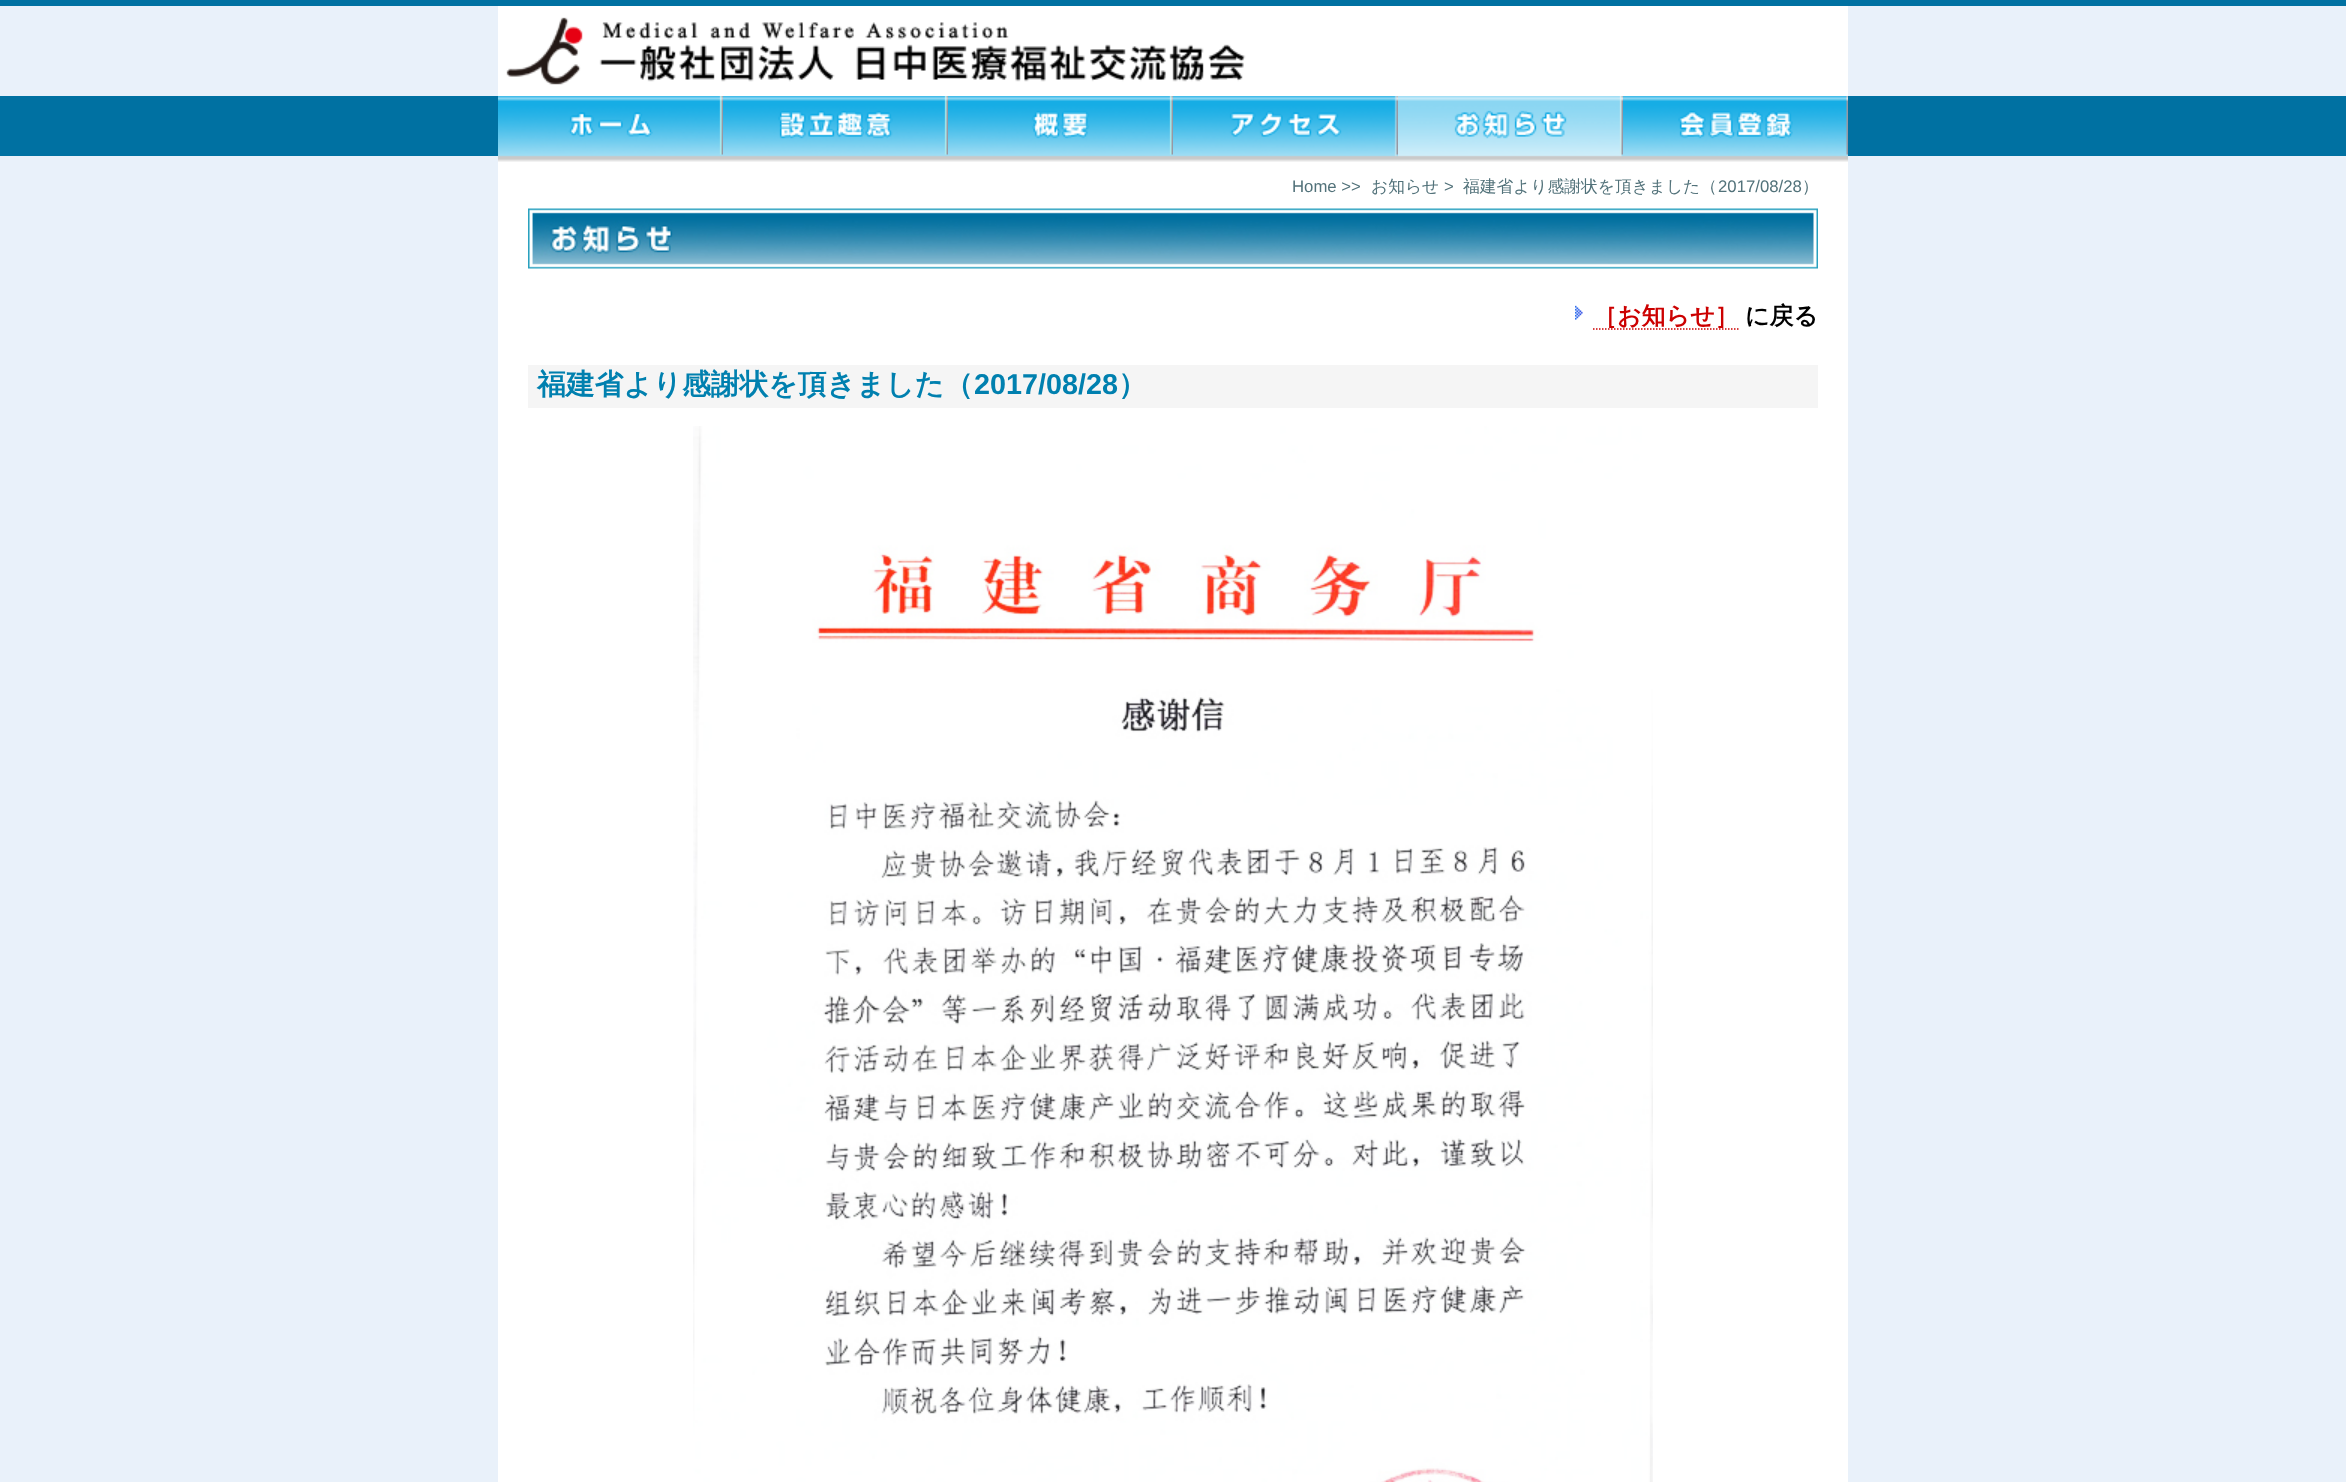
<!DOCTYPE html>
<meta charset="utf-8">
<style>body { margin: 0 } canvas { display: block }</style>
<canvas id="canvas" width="2346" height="1482"></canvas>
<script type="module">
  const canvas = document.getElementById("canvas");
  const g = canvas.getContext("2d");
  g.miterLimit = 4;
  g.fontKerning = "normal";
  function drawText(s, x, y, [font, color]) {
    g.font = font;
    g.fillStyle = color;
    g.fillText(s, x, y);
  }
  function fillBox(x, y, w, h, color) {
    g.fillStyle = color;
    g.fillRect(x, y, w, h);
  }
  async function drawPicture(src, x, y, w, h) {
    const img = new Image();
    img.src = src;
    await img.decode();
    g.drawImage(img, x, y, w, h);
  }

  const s1 = ["16.75px Liberation Sans", "#52727A"];
  const s2 = ["500 16.75px WenQuanYi Zen Hei", "#52727A"];
  const s3 = ["bold 24px WenQuanYi Zen Hei", "#CC0000"];
  const s4 = ["bold 24px WenQuanYi Zen Hei", "#000000"];
  const s5 = ["bold 28.75px WenQuanYi Zen Hei", "#0080AF"];
  const s6 = ["bold 28.75px Liberation Sans", "#0080AF"];

  fillBox(0, 0, 2346, 1482, "#E9F1FA");
  fillBox(0, 0, 2346, 6, "#0071A2");
  fillBox(498, 6, 1350, 90, "#FFFFFF");
  await drawPicture("pic1.png", 506, 17, 740, 68);
  fillBox(0, 96, 2346, 60, "#0071A2");
  fillBox(498, 162, 1350, 2, "#FFFFFF");
  await drawPicture("pic2.png", 498, 96, 225, 66);
  await drawPicture("pic3.png", 723, 96, 225, 66);
  await drawPicture("pic4.png", 948, 96, 225, 66);
  await drawPicture("pic5.png", 1173, 96, 225, 66);
  await drawPicture("pic6.png", 1398, 96, 225, 66);
  await drawPicture("pic7.png", 1623, 96, 225, 66);
  fillBox(498, 164, 1350, 1318, "#FFFFFF");
  drawText("Home >>", 1292, 192, s1);
  drawText("お知らせ", 1371, 192, s2);
  drawText(">", 1444, 192, s1);
  drawText("福建省より感謝状を頂きました（", 1463, 192, s2);
  drawText("2017/08/28", 1718, 192, s1);
  drawText("）", 1802, 192, s2);
  await drawPicture("pic8.png", 528, 208, 1290, 61);
  await drawPicture("pic9.png", 1575, 305, 8, 15);
  g.beginPath();
  g.moveTo(1593, 329);
  g.lineTo(1738.5, 329);
  g.strokeStyle = "#CC0000";
  g.lineWidth = 1.5;
  g.setLineDash([1.5, 1.5]);
  g.stroke();
  drawText("［お知らせ］", 1593, 324, s3);
  drawText("に戻る", 1745, 324, s4);
  fillBox(528, 365, 1290, 43, "#F5F5F5");
  drawText("福建省より感謝状を頂きました（", 537, 394, s5);
  drawText("2017/08/28", 974, 394, s6);
  drawText("）", 1118, 394, s5);
  await drawPicture("pic10.png", 693, 426, 960, 1056);
</script>
